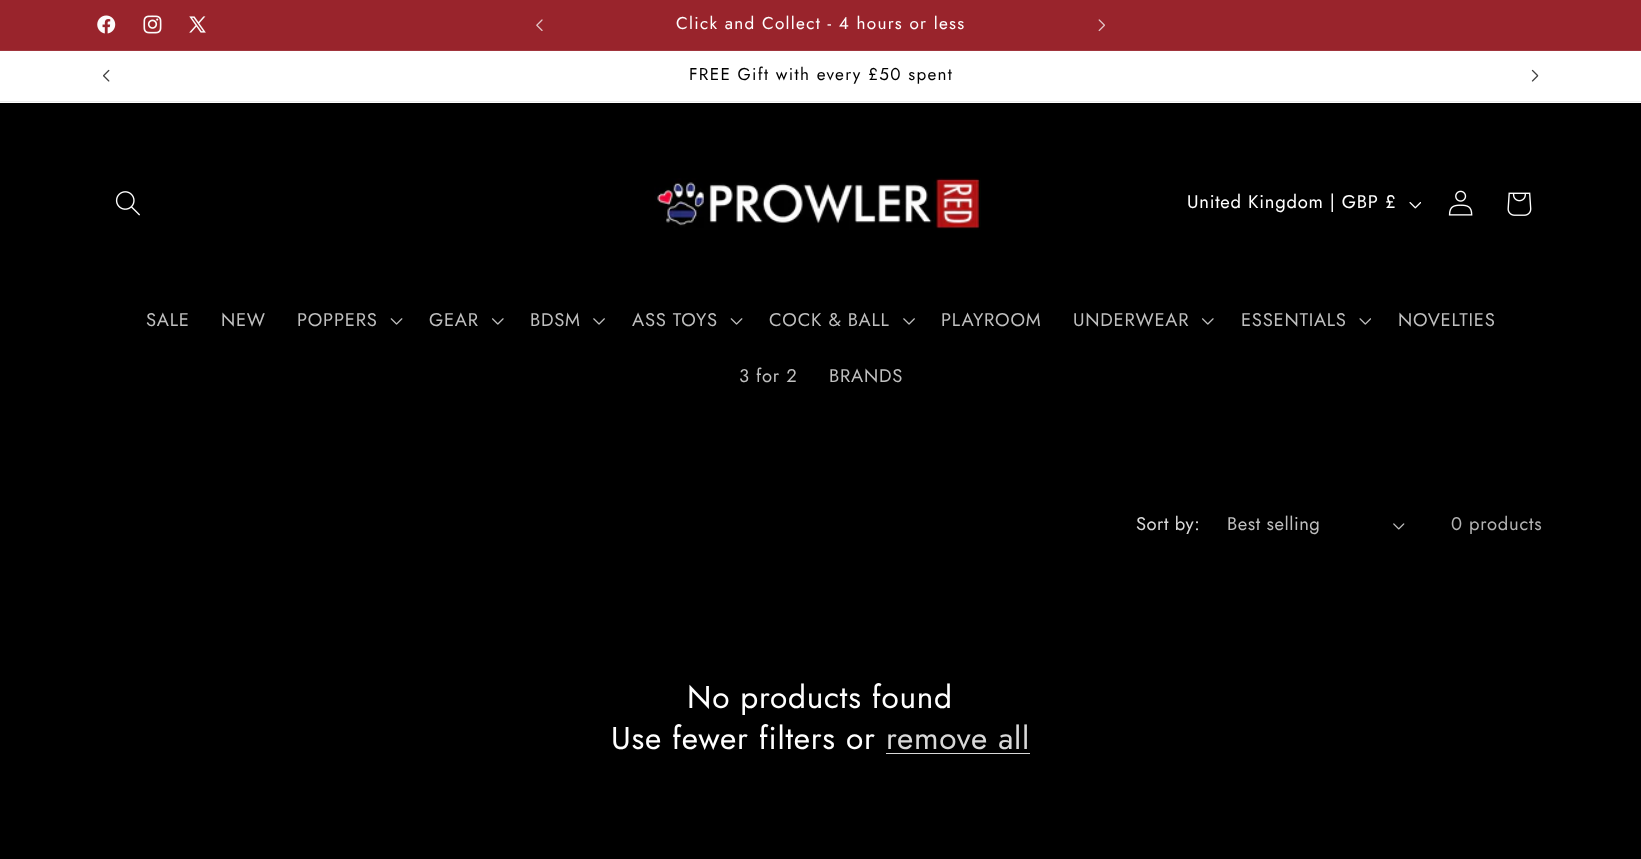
<!DOCTYPE html>
<meta charset="utf-8">
<style>body { margin: 0 } canvas { display: block }</style>
<canvas id="canvas" width="1641" height="859"></canvas>
<script type="module">
  const canvas = document.getElementById("canvas");
  const g = canvas.getContext("2d");
  g.miterLimit = 4;
  g.fontKerning = "normal";
  function drawText(s, x, y, [font, color]) {
    g.font = font;
    g.fillStyle = color;
    g.fillText(s, x, y);
  }
  function fillBox(x, y, w, h, color) {
    g.fillStyle = color;
    g.fillRect(x, y, w, h);
  }
  async function drawPicture(src, x, y, w, h) {
    const img = new Image();
    img.src = src;
    await img.decode();
    g.drawImage(img, x, y, w, h);
  }

  const s1 = ["17.1px Jost", "#FFFFFF"];
  const s2 = ["17.1px Jost", "#000000"];
  const s3 = ["18.4px Jost", "#FFFFFF"];
  const s4 = ["18.4px Jost", "#BFBFBF"];
  const s5 = ["18.4px Jost", "#D9D9D9"];
  const s6 = ["18.4px Jost", "#B3B3B3"];
  const s7 = ["31.5px Jost", "#FFFFFF"];
  const s8 = ["31.5px Jost", "#D9D9D9"];

  fillBox(0, 0, 1641, 859, "#000000");
  fillBox(0, 0, 1641, 50, "#99242C");
  fillBox(0, 50, 1641, 1, "#A1353D");
  await drawPicture("pic1.png", 97, 15, 19, 19);
  await drawPicture("pic2.png", 143, 15, 19, 19);
  await drawPicture("pic3.png", 189, 16, 17, 17);
  await drawPicture("pic4.png", 536, 19, 7, 12);
  g.letterSpacing = "1.3px";
  drawText("Click and Collect - 4 hours or less", 676, 29, s1);
  await drawPicture("pic5.png", 1098, 19, 7, 13);
  fillBox(0, 51, 1641, 52, "#FFFFFF");
  fillBox(0, 101, 1641, 1, "#EBEBEB");
  await drawPicture("pic6.png", 103, 69, 7, 13);
  drawText("FREE Gift with every £50 spent", 689, 80, s2);
  await drawPicture("pic7.png", 1531, 69, 8, 13);
  await drawPicture("pic8.png", 115, 191, 25, 25);
  await drawPicture("pic9.png", 654, 178, 327, 52);
  g.letterSpacing = "0.75px";
  drawText("United Kingdom | GBP £", 1187, 208, s3);
  await drawPicture("pic10.png", 1409, 202, 12, 7);
  await drawPicture("pic11.png", 1448, 190, 25, 26);
  await drawPicture("pic12.png", 1507, 192, 25, 24);
  drawText("SALE", 146, 326, s4);
  drawText("NEW", 221, 326, s4);
  drawText("POPPERS", 297, 326, s4);
  await drawPicture("pic13.png", 390, 318, 13, 7);
  drawText("GEAR", 429, 326, s4);
  await drawPicture("pic14.png", 492, 318, 12, 7);
  drawText("BDSM", 530, 326, s4);
  await drawPicture("pic15.png", 593, 318, 12, 7);
  drawText("ASS TOYS", 632, 326, s4);
  await drawPicture("pic13.png", 730, 318, 13, 7);
  drawText("COCK & BALL", 769, 326, s4);
  await drawPicture("pic15.png", 903, 318, 12, 7);
  drawText("PLAYROOM", 941, 326, s4);
  drawText("UNDERWEAR", 1073, 326, s4);
  await drawPicture("pic14.png", 1202, 318, 12, 7);
  drawText("ESSENTIALS", 1241, 326, s4);
  await drawPicture("pic16.png", 1359, 318, 12, 7);
  drawText("NOVELTIES", 1398, 326, s4);
  drawText("3 for 2", 739, 382, s4);
  drawText("BRANDS", 829, 382, s4);
  g.letterSpacing = "0.5px";
  drawText("Sort by:", 1136, 530, s5);
  drawText("Best selling", 1227, 530, s4);
  await drawPicture("pic17.png", 1393, 523, 12, 7);
  g.letterSpacing = "0.75px";
  drawText("0 products", 1451, 530, s6);
  drawText("No products found", 687, 708, s7);
  drawText("Use fewer filters or", 611, 749, s7);
  drawText("remove all", 886, 749, s8);
  fillBox(886, 753, 144, 1, "#D9D9D9");
</script>
